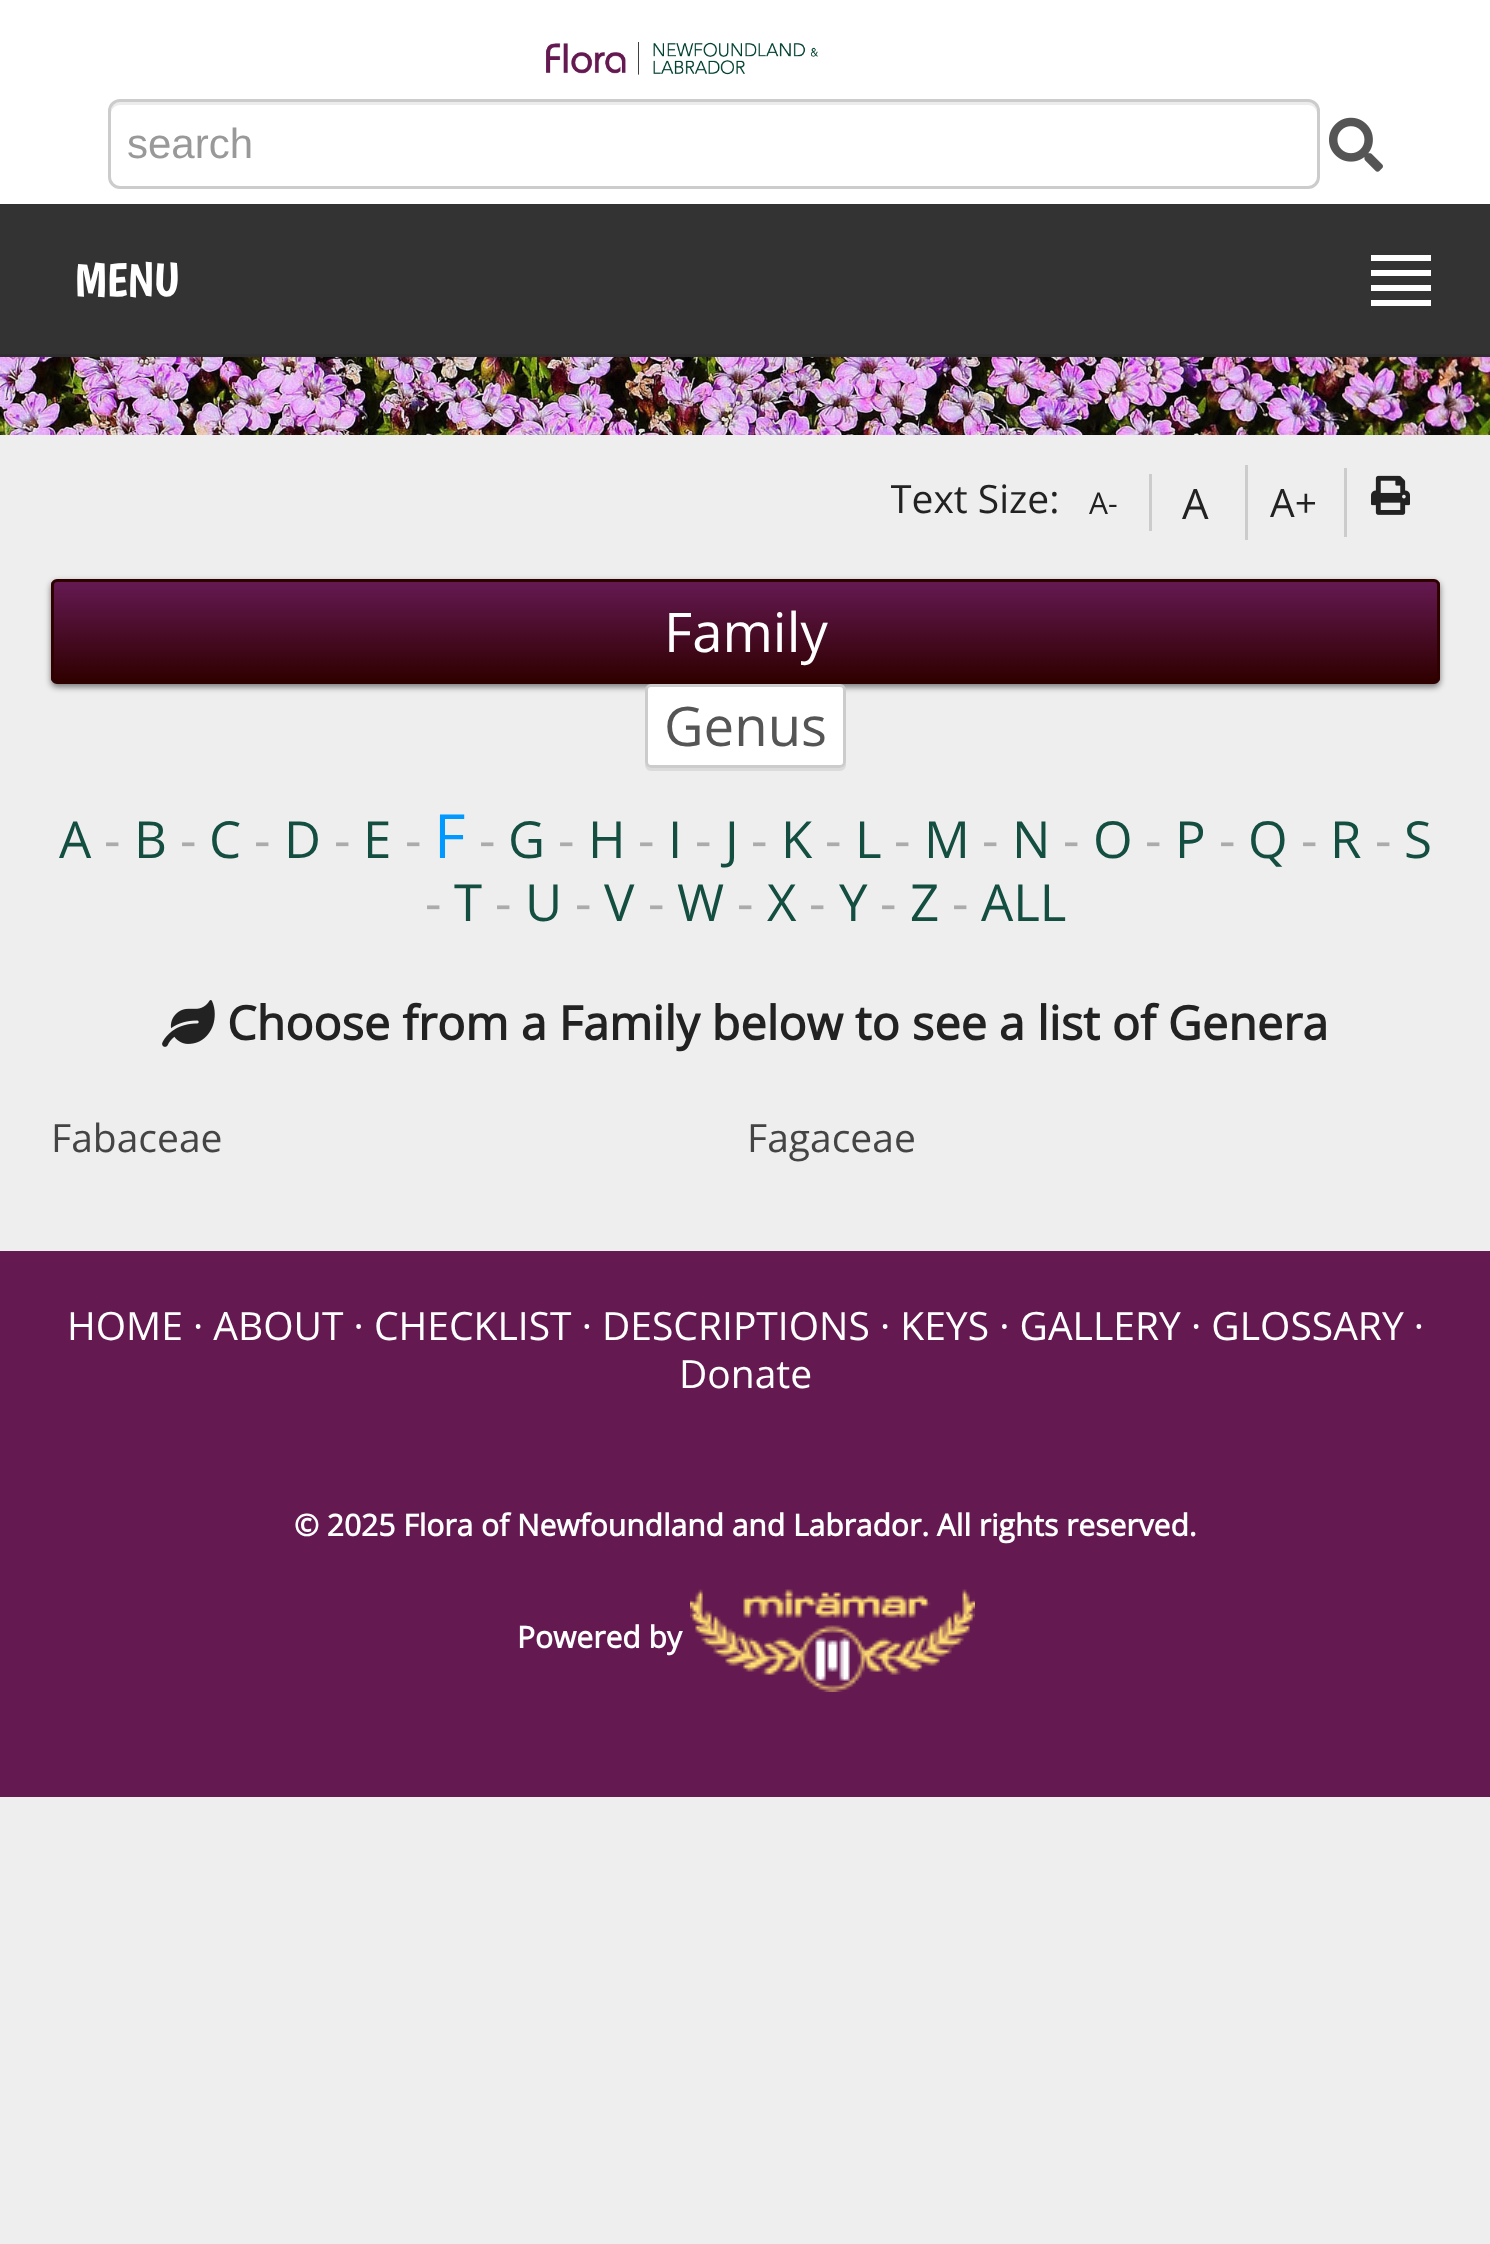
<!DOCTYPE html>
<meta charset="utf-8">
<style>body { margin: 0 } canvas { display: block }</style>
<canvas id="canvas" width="1490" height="2244"></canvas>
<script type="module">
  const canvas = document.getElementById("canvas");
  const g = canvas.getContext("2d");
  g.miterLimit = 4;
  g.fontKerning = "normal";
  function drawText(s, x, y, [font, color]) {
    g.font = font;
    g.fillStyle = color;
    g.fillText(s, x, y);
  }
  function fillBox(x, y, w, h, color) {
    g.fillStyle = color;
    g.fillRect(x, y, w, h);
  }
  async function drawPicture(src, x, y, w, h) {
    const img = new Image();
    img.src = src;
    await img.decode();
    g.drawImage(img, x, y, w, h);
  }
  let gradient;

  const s1 = ["42px Liberation Sans", "#999999"];
  const s2 = ["48px Boogaloo", "#FFFFFF"];
  const s3 = ["39px Open Sans", "#222222"];
  const s4 = ["30px Open Sans", "#222222"];
  const s5 = ["42px Open Sans", "#222222"];
  const s6 = ["54.5px Open Sans", "#FFFFFF"];
  const s7 = ["54.5px Open Sans", "#555555"];
  const s8 = ["51px Open Sans", "#134E40"];
  const s9 = ["51px Open Sans", "#ABABAB"];
  const s10 = ["61px Open Sans", "#0099FF"];
  const s11 = ["bold 46.8px Open Sans", "#222222"];
  const s12 = ["39px Open Sans", "#444444"];
  const s13 = ["39px Open Sans", "#FFFFFF"];
  const s14 = ["bold 30px Open Sans", "#FFFFFF"];

  fillBox(0, 0, 1490, 2244, "#EEEEEE");
  fillBox(0, 0, 1490, 204, "#FFFFFF");
  await drawPicture("pic1.png", 546, 42, 273, 33);
  g.fillStyle = "#ECECEC";
  g.beginPath();
  g.moveTo(120, 105);
  g.lineTo(1308, 105);
  g.bezierCurveTo(1313, 105, 1317, 109, 1317, 114);
  g.lineTo(1317, 111);
  g.bezierCurveTo(1317, 106, 1313, 102, 1308, 102);
  g.lineTo(120, 102);
  g.bezierCurveTo(115, 102, 111, 106, 111, 111);
  g.lineTo(111, 114);
  g.bezierCurveTo(111, 109, 115, 105, 120, 105);
  g.closePath();
  g.fill();
  g.beginPath();
  g.roundRect(109.5, 100.5, 1209, 87, 10.5);
  g.strokeStyle = "#CCCCCC";
  g.lineWidth = 3;
  g.stroke();
  drawText("search", 127, 158, s1);
  await drawPicture("pic2.png", 1329, 117, 54, 55);
  fillBox(0, 204, 1490, 150, "#333333");
  fillBox(0, 354, 1490, 3, "#2E2E2E");
  drawText("MENU", 75, 296, s2);
  fillBox(1371, 255, 60, 6, "#FFFFFF");
  fillBox(1371, 270, 60, 6, "#FFFFFF");
  fillBox(1371, 285, 60, 6, "#FFFFFF");
  fillBox(1371, 300, 60, 6, "#FFFFFF");
  await drawPicture("pic3.png", 0, 357, 1490, 78);
  g.save();
  g.beginPath();
  g.rect(891, 465, 549, 75);
  g.clip();
  drawText("Text Size:", 890, 513, s3);
  g.restore();
  fillBox(1149, 474, 3, 57, "#CCCCCC");
  drawText("A-", 1089, 514, s4);
  fillBox(1245, 465, 3, 75, "#CCCCCC");
  drawText("A", 1182, 519, s5);
  fillBox(1344, 468, 3, 69, "#CCCCCC");
  drawText("A+", 1270, 517, s3);
  await drawPicture("pic4.png", 1371, 475, 39, 40);
  g.fillStyle = "rgba(0, 0, 0, 0.5)";
  g.filter = "blur(3px)";
  g.beginPath();
  g.roundRect(51, 582, 1389, 105, 6);
  g.fill();
  g.filter = "none";
  g.save();
  g.beginPath();
  g.roundRect(51, 579, 1389, 105, 6);
  g.clip();
  gradient = g.createLinearGradient(746, 582, 746, 681);
  gradient.addColorStop(0, "#641951");
  gradient.addColorStop(1, "#2F0000");
  g.fillStyle = gradient;
  g.fillRect(51, 582, 1389, 99);
  g.restore();
  g.beginPath();
  g.roundRect(52.5, 580.5, 1386, 102, 4.5);
  g.strokeStyle = "#2F0000";
  g.stroke();
  drawText("Family", 664, 652, s6);
  g.fillStyle = "#DBDBDB";
  g.beginPath();
  g.moveTo(645, 762);
  g.lineTo(645, 765);
  g.bezierCurveTo(645, 768, 648, 771, 651, 771);
  g.lineTo(840, 771);
  g.bezierCurveTo(843, 771, 846, 768, 846, 765);
  g.lineTo(846, 762);
  g.bezierCurveTo(846, 765, 843, 768, 840, 768);
  g.lineTo(651, 768);
  g.bezierCurveTo(648, 768, 645, 765, 645, 762);
  g.closePath();
  g.fill();
  g.fillStyle = "#FFFFFF";
  g.beginPath();
  g.roundRect(646.5, 685.5, 198, 81, 4.5);
  g.fill();
  g.strokeStyle = "#CCCCCC";
  g.stroke();
  drawText("Genus", 664, 746, s7);
  drawText("A", 59, 858, s8);
  drawText("-", 104, 858, s9);
  drawText("B", 134, 858, s8);
  drawText("-", 180, 858, s9);
  drawText("C", 209, 858, s8);
  drawText("-", 254, 858, s9);
  drawText("D", 284, 858, s8);
  drawText("-", 334, 858, s9);
  drawText("E", 363, 858, s8);
  drawText("-", 405, 858, s9);
  drawText("F", 434, 858, s10);
  drawText("-", 479, 858, s9);
  drawText("G", 508, 858, s8);
  drawText("-", 558, 858, s9);
  drawText("H", 588, 858, s8);
  drawText("-", 638, 858, s9);
  drawText("I", 668, 858, s8);
  drawText("-", 695, 858, s9);
  drawText("J", 725, 858, s8);
  drawText("-", 751, 858, s9);
  drawText("K", 781, 858, s8);
  drawText("-", 825, 858, s9);
  drawText("L", 855, 858, s8);
  drawText("-", 894, 858, s9);
  drawText("M", 924, 858, s8);
  drawText("-", 982, 858, s9);
  drawText("N", 1012, 858, s8);
  drawText("-", 1063, 858, s9);
  drawText("O", 1093, 858, s8);
  drawText("-", 1145, 858, s9);
  drawText("P", 1175, 858, s8);
  drawText("-", 1219, 858, s9);
  drawText("Q", 1248, 858, s8);
  drawText("-", 1301, 858, s9);
  drawText("R", 1330, 858, s8);
  drawText("-", 1375, 858, s9);
  drawText("S", 1404, 858, s8);
  drawText("-", 425, 921, s9);
  drawText("T", 454, 921, s8);
  drawText("-", 495, 921, s9);
  drawText("U", 525, 921, s8);
  drawText("-", 575, 921, s9);
  drawText("V", 604, 921, s8);
  drawText("-", 648, 921, s9);
  drawText("W", 677, 921, s8);
  drawText("-", 737, 921, s9);
  drawText("X", 767, 921, s8);
  drawText("-", 809, 921, s9);
  drawText("Y", 839, 921, s8);
  drawText("-", 880, 921, s9);
  drawText("Z", 910, 921, s8);
  drawText("-", 952, 921, s9);
  drawText("ALL", 981, 921, s8);
  await drawPicture("pic5.png", 162, 1000, 53, 47);
  drawText("Choose from a Family below to see a list of Genera", 227, 1040, s11);
  drawText("Fabaceae", 51, 1152, s12);
  drawText("Fagaceae", 747, 1152, s12);
  fillBox(0, 1251, 1490, 546, "#641951");
  drawText("HOME · ABOUT · CHECKLIST · DESCRIPTIONS · KEYS · GALLERY · GLOSSARY ·", 67, 1340, s13);
  drawText("Donate", 679, 1388, s13);
  drawText("© 2025 Flora of Newfoundland and Labrador. All rights reserved.", 294, 1536, s14);
  drawText("Powered by", 517, 1648, s14);
  await drawPicture("pic6.png", 690, 1589, 285, 103);
</script>
